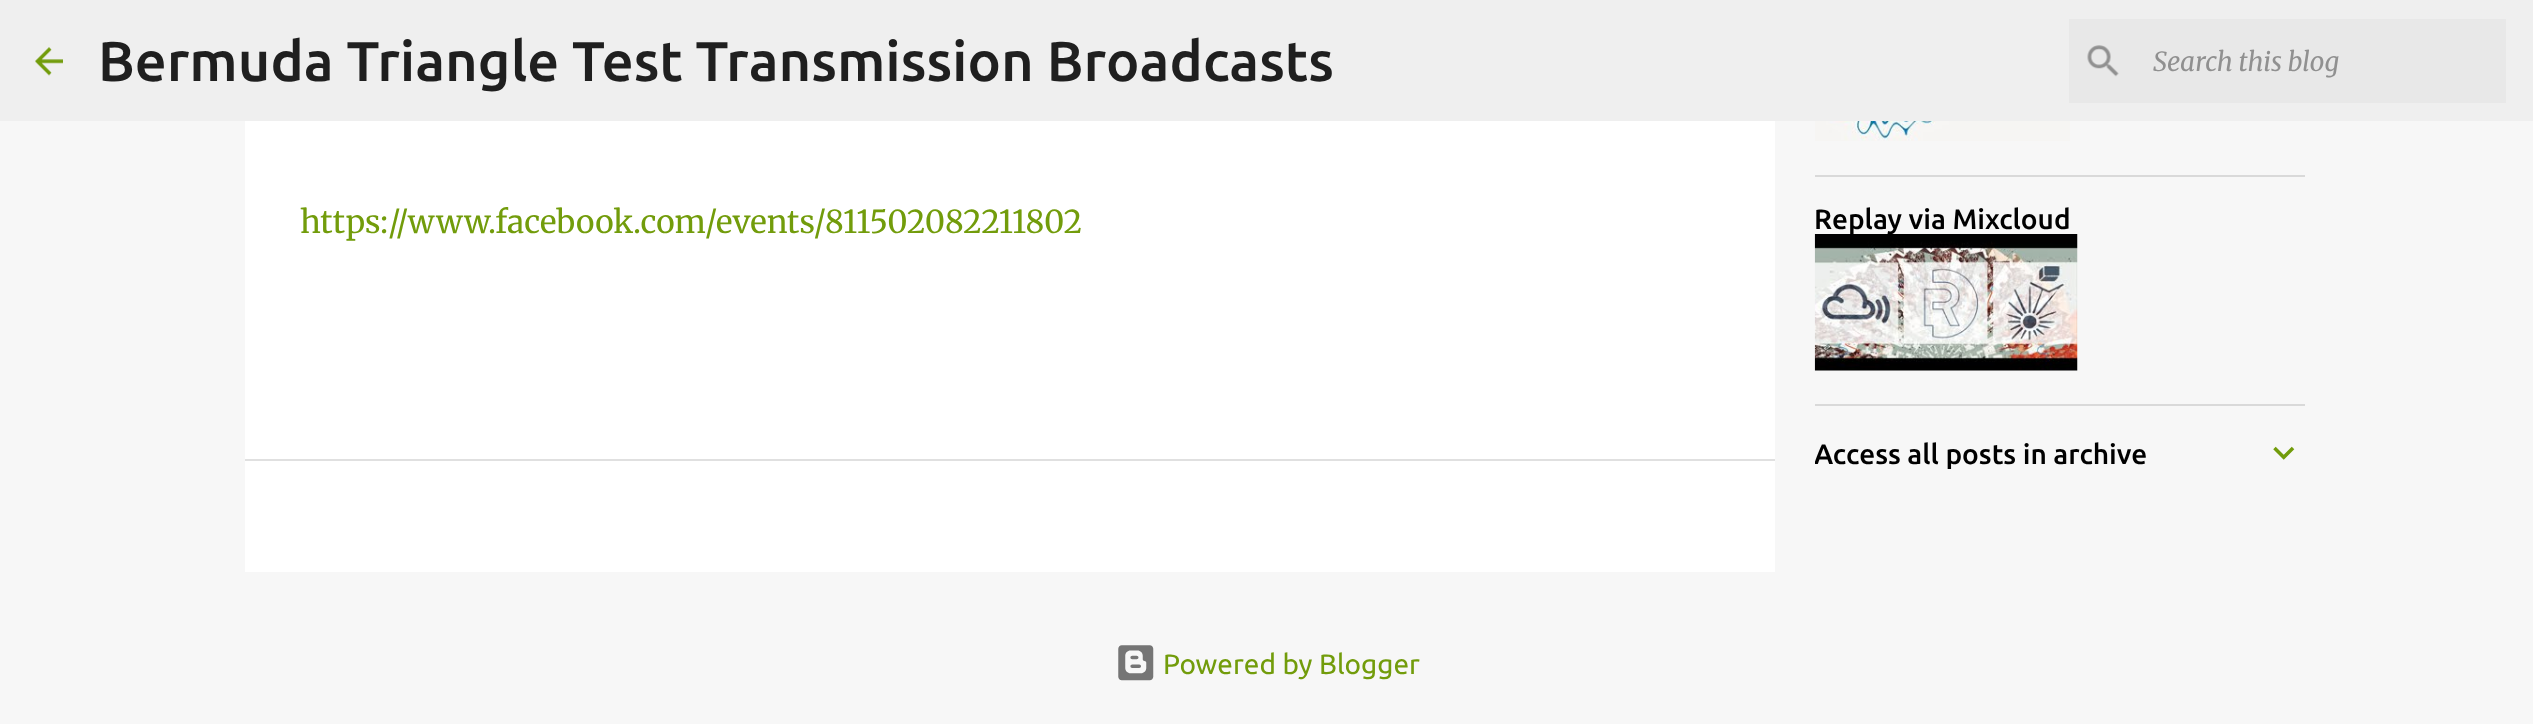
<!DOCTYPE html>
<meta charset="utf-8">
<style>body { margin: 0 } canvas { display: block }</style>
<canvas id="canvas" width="2533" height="724"></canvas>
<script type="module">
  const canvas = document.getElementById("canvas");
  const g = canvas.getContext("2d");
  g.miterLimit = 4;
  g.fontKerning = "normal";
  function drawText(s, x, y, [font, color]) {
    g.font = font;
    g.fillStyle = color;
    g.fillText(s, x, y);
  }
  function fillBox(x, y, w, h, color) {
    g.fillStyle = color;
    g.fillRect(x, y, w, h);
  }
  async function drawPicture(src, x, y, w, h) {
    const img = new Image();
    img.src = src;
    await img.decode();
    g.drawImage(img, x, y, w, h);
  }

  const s1 = ["500 56px Ubuntu", "#1F1F1F"];
  const s2 = ["italic 26.25px Merriweather", "#909090"];
  const s3 = ["300 31.5px Merriweather", "#729C0B"];
  const s4 = ["500 28px Ubuntu", "#000000"];
  const s5 = ["28px Ubuntu", "#729C0B"];

  fillBox(0, 0, 2533, 724, "#F7F7F7");
  fillBox(0, 0, 2533, 121, "#EFEFEF");
  await drawPicture("pic1.png", 35, 47, 28, 29);
  drawText("Bermuda Triangle Test Transmission Broadcasts", 98, 81, s1);
  fillBox(2069, 19, 437, 84, "#E8E8E8");
  await drawPicture("pic2.png", 2087, 45, 32, 32);
  drawText("Search this blog", 2153, 71, s2);
  fillBox(245, 121, 1530, 338, "#FFFFFF");
  drawText("https://www.facebook.com/events/811502082211802", 300, 233, s3);
  fillBox(245, 461, 1530, 111, "#FFFFFF");
  fillBox(245, 459, 1530, 2, "#E0E0E0");
  await drawPicture("pic3.png", 1815, 121, 255, 20);
  fillBox(1815, 175, 490, 2, "#D9D9D9");
  drawText("Replay via Mixcloud", 1814, 229, s4);
  await drawPicture("pic4.png", 1814, 234, 264, 137);
  fillBox(1815, 404, 490, 2, "#D9D9D9");
  g.save();
  g.beginPath();
  g.rect(1815, 438, 448, 31);
  g.clip();
  drawText("Access all posts in archive", 1814, 464, s4);
  g.restore();
  await drawPicture("pic5.png", 2273, 446, 22, 14);
  await drawPicture("pic6.png", 1118, 645, 36, 36);
  drawText("Powered by Blogger", 1163, 674, s5);
</script>
